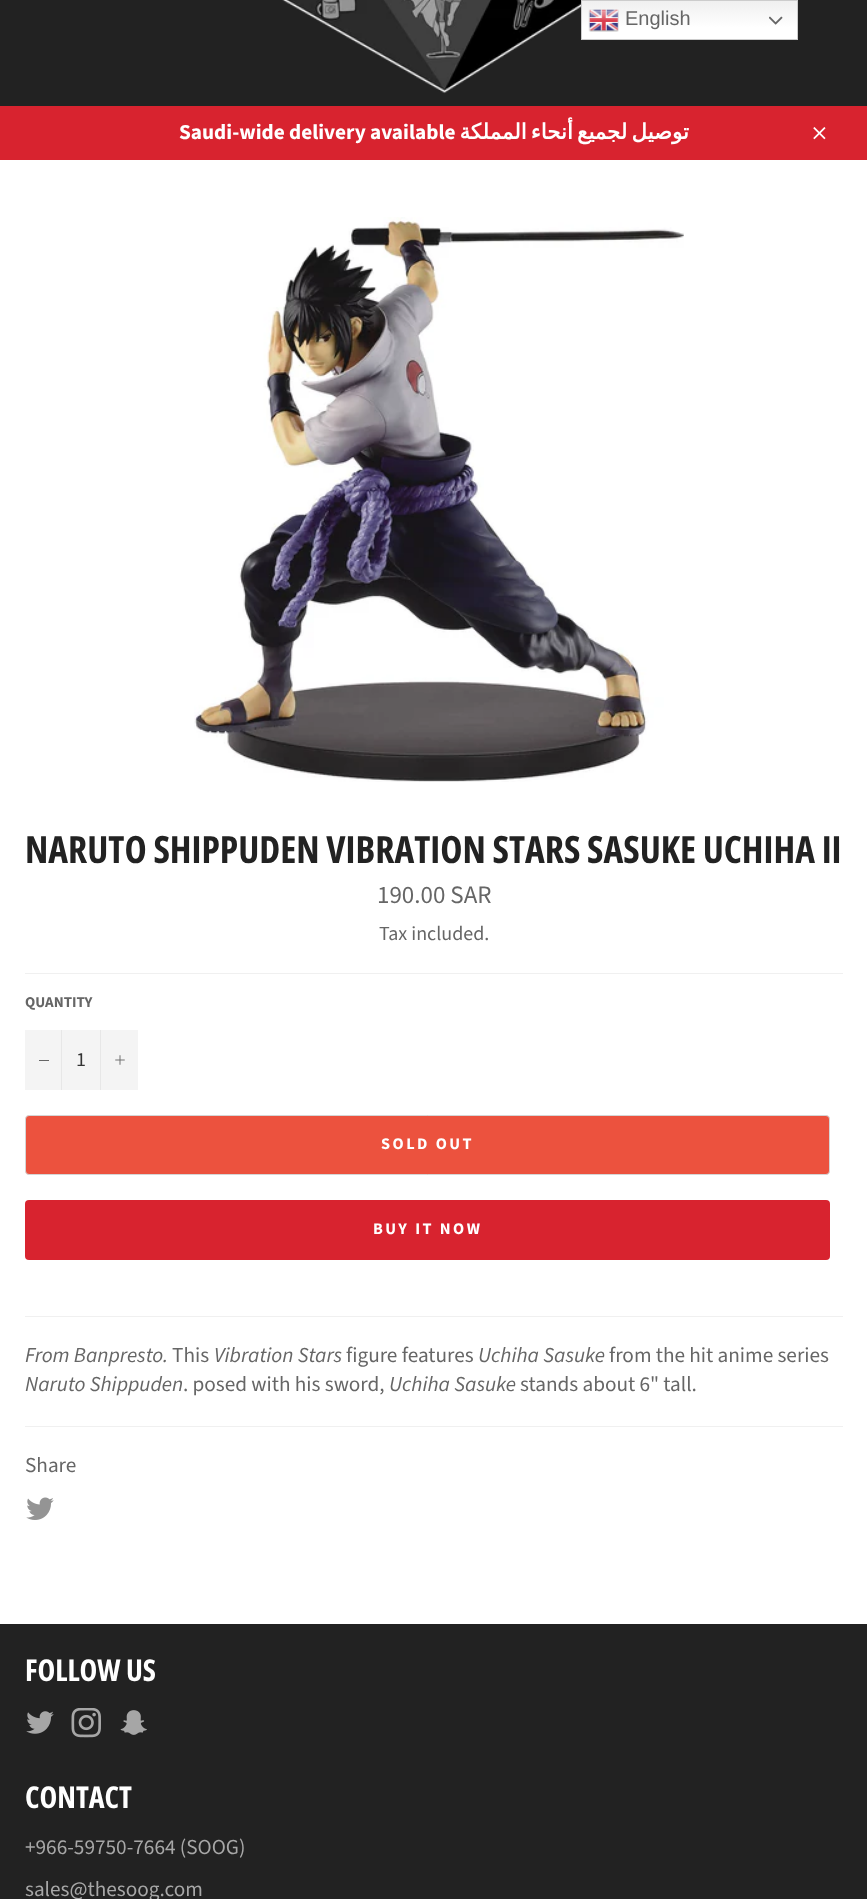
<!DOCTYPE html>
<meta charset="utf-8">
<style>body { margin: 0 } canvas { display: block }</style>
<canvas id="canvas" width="867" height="1899"></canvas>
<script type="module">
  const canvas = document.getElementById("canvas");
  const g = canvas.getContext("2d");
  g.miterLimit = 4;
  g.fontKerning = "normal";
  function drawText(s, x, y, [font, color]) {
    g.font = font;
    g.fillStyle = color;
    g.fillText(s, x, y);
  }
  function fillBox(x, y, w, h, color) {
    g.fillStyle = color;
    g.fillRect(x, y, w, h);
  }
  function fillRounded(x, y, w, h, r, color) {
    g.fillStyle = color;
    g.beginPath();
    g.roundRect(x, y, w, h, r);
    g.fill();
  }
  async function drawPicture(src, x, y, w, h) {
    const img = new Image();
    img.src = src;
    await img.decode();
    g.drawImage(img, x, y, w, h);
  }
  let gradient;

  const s1 = ["20px Liberation Sans", "#666666"];
  const s2 = ["bold 21.25px Source Sans Pro", "#FFFFFF"];
  const s3 = ["bold 21.25px DejaVu Sans", "#FFFFFF"];
  const s4 = ["bold 37.5px Open Sans Condensed", "#222222"];
  const s5 = ["25px Source Sans Pro", "#666666"];
  const s6 = ["20px Source Sans Pro", "#666666"];
  const s7 = ["bold 15px Source Sans Pro", "#666666"];
  const s8 = ["20px Source Sans Pro", "#333333"];
  const s9 = ["bold 16.25px Source Sans Pro", "#FFFFFF"];
  const s10 = ["italic 21.25px Source Sans Pro", "#666666"];
  const s11 = ["21.25px Source Sans Pro", "#666666"];
  const s12 = ["bold 30px Open Sans Condensed", "#FFFFFF"];
  const s13 = ["21.25px Source Sans Pro", "#A7A7A7"];

  fillBox(0, 0, 867, 1899, "#222222");
  gradient = g.createLinearGradient(689, 0, 689, 40);
  gradient.addColorStop(0, "#EFEFEF");
  gradient.addColorStop(0.7, "#FFFFFF");
  g.fillStyle = gradient;
  g.fillRect(582, 1, 215, 38);
  g.strokeStyle = "#CCCCCC";
  g.strokeRect(581.5, 0.5, 216, 39);
  await drawPicture("pic1.png", 588, 9, 31, 23);
  drawText("English", 625, 25, s1);
  await drawPicture("pic2.png", 769, 16, 14, 9);
  await drawPicture("pic3.png", 282, 0, 299, 94);
  fillBox(0, 106, 867, 54, "#D8232F");
  drawText("Saudi-wide delivery available", 179, 139, s2);
  g.wordSpacing = "-2.5px";
  g.direction = "rtl";
  drawText("توصيل لجميع أنحاء المملكة", 689, 139, s3);
  await drawPicture("pic4.png", 813, 127, 13, 13);
  fillBox(0, 160, 867, 1464, "#FFFFFF");
  await drawPicture("pic5.png", 194, 217, 490, 565);
  g.wordSpacing = "0px";
  g.direction = "ltr";
  drawText("NARUTO SHIPPUDEN VIBRATION STARS SASUKE UCHIHA II", 25, 863, s4);
  drawText("190.00 SAR", 377, 903, s5);
  drawText("Tax included.", 379, 940, s6);
  fillBox(25, 973, 818, 1, "#F0F0F0");
  drawText("QUANTITY", 25, 1007, s7);
  fillBox(25, 1030, 113, 60, "#F4F4F4");
  fillBox(61, 1030, 1, 60, "#E7E7E7");
  fillBox(39, 1060, 10, 1, "#666666");
  drawText("1", 76, 1066, s8);
  fillBox(100, 1030, 1, 60, "#E7E7E7");
  await drawPicture("pic6.png", 115, 1055, 10, 10);
  g.fillStyle = "#EC523E";
  g.beginPath();
  g.roundRect(25.5, 1115.5, 804, 59, 3.5);
  g.fill();
  g.strokeStyle = "#D5D5D5";
  g.stroke();
  g.letterSpacing = "2.5px";
  drawText("SOLD OUT", 381, 1149, s9);
  fillRounded(25, 1200, 805, 60, 4, "#D8232F");
  drawText("BUY IT NOW", 373, 1234, s9);
  fillBox(25, 1316, 818, 1, "#F0F0F0");
  g.letterSpacing = "0px";
  drawText("From Banpresto.", 25, 1362, s10);
  drawText("This", 172, 1362, s11);
  drawText("Vibration Stars", 214, 1362, s10);
  drawText("figure features", 346, 1362, s11);
  drawText("Uchiha Sasuke", 478, 1362, s10);
  drawText("from the hit anime series", 609, 1362, s11);
  drawText("Naruto Shippuden", 25, 1391, s10);
  drawText(". posed with his sword,", 183, 1391, s11);
  drawText("Uchiha Sasuke", 389, 1391, s10);
  drawText("stands about 6\" tall.", 520, 1391, s11);
  fillBox(25, 1426, 818, 1, "#F0F0F0");
  drawText("Share", 25, 1472, s11);
  await drawPicture("pic7.png", 26, 1497, 28, 23);
  drawText("FOLLOW US", 25, 1681, s12);
  await drawPicture("pic8.png", 26, 1711, 28, 23);
  await drawPicture("pic9.png", 71, 1708, 30, 30);
  await drawPicture("pic10.png", 120, 1710, 27, 25);
  drawText("CONTACT", 25, 1808, s12);
  drawText("+966-59750-7664 (SOOG)", 25, 1854, s13);
  drawText("sales@thesoog.com", 25, 1896, s13);
</script>
